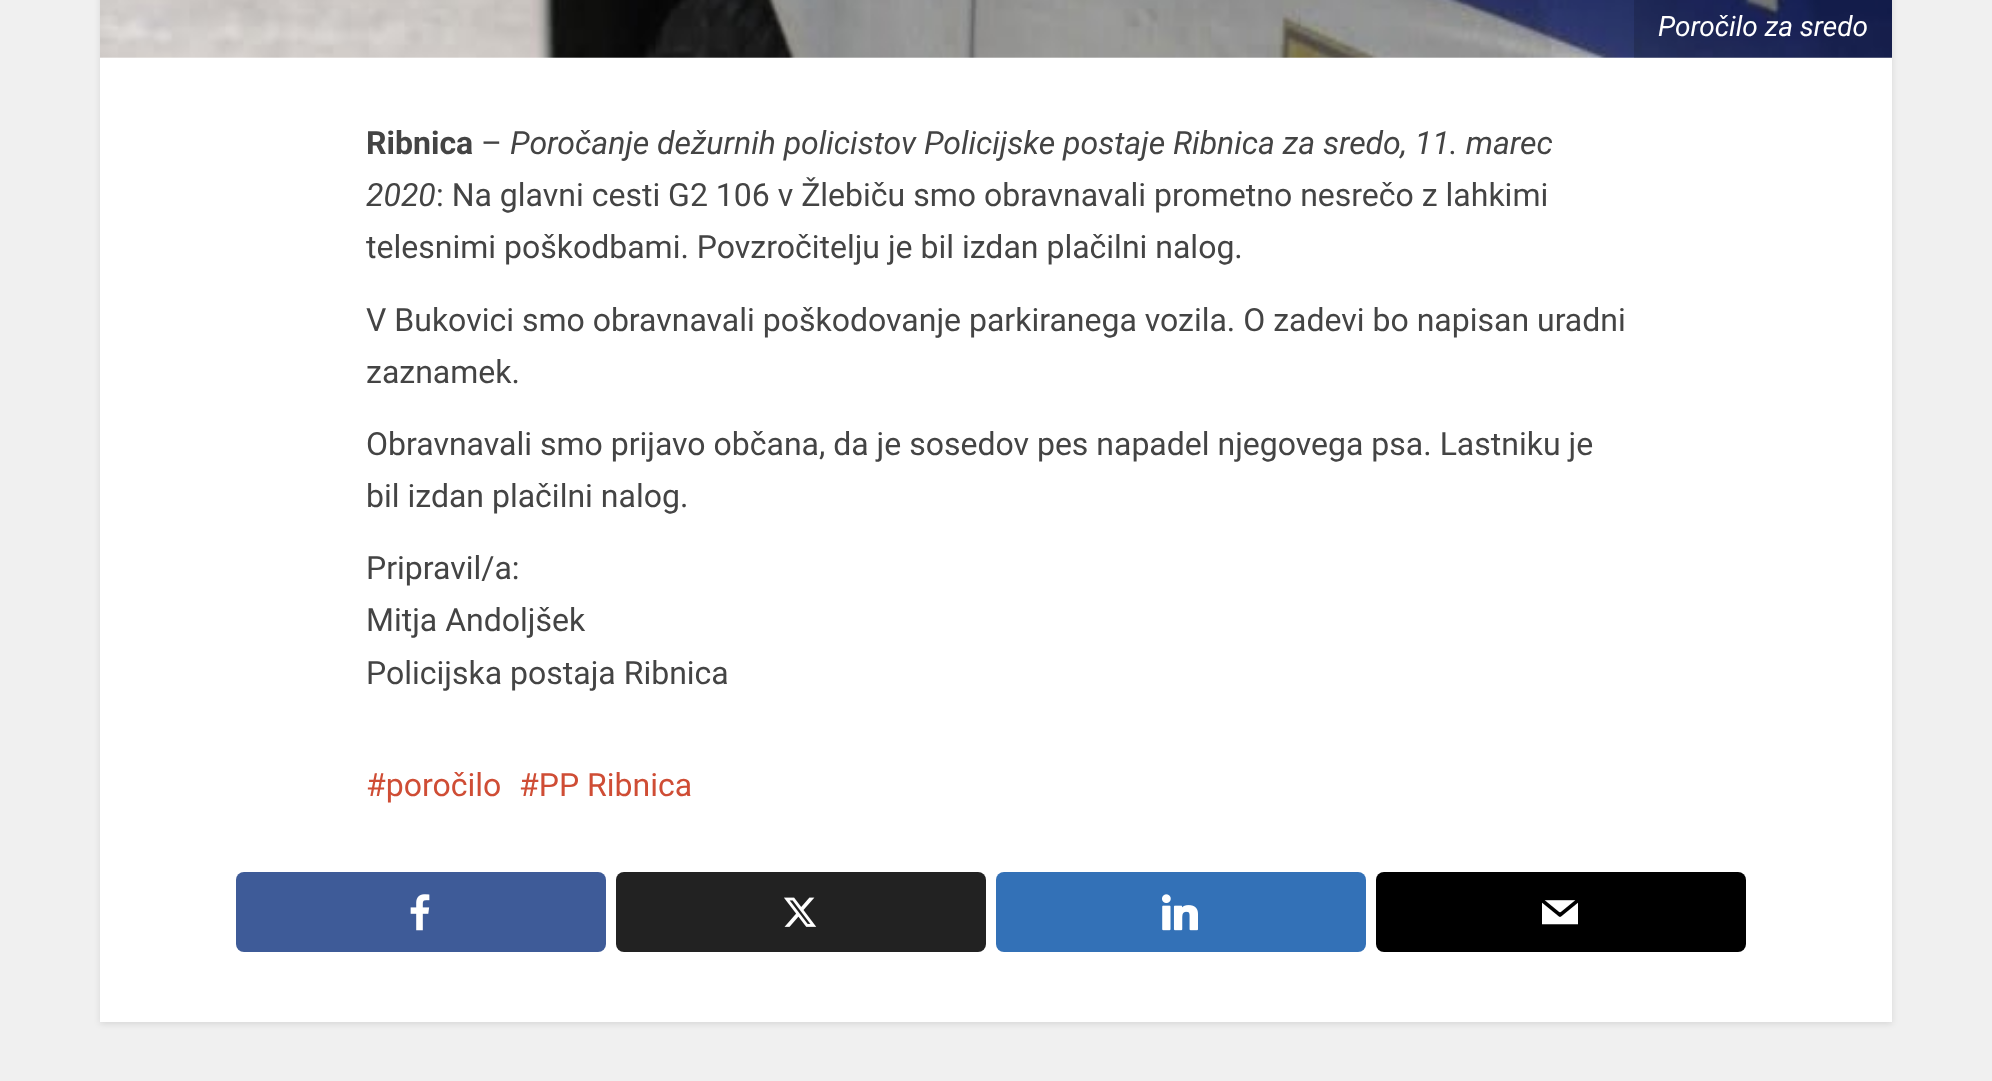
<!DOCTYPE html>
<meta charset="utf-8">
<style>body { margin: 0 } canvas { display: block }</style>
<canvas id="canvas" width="1992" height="1081"></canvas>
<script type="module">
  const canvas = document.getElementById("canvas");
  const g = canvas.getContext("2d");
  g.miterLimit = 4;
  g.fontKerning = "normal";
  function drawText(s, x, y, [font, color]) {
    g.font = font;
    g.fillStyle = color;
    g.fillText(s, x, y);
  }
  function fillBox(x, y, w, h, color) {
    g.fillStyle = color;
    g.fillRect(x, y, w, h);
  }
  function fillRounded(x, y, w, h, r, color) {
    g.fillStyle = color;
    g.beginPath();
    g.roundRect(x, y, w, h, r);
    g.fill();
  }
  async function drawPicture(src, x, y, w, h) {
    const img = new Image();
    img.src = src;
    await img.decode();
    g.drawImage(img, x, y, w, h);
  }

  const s1 = ["italic 28px Roboto", "#FFFFFF"];
  const s2 = ["bold 32px Roboto", "#444444"];
  const s3 = ["32px Roboto", "#444444"];
  const s4 = ["italic 32px Roboto", "#444444"];
  const s5 = ["32px Roboto", "#CF4D35"];

  fillBox(0, 0, 1992, 1081, "#F0F0F0");
  g.fillStyle = "rgba(0, 0, 0, 0.1)";
  g.filter = "blur(3px)";
  g.beginPath();
  g.rect(100, -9, 1792, 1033);
  g.fill();
  g.filter = "none";
  fillBox(100, 57, 1792, 965, "#FFFFFF");
  await drawPicture("pic1.png", 100, 0, 1792, 58);
  fillBox(1634, 0, 258, 58, "rgba(0, 0, 0, 0.15)");
  drawText("Poročilo za sredo", 1658, 36, s1);
  drawText("Ribnica", 366, 154, s2);
  drawText("–", 481, 154, s3);
  drawText("Poročanje dežurnih policistov Policijske postaje Ribnica za sredo, 11. marec", 510, 154, s4);
  drawText("2020", 366, 206, s4);
  drawText(": Na glavni cesti G2 106 v Žlebiču smo obravnavali prometno nesrečo z lahkimi", 436, 206, s3);
  drawText("telesnimi poškodbami. Povzročitelju je bil izdan plačilni nalog.", 366, 258, s3);
  drawText("V Bukovici smo obravnavali poškodovanje parkiranega vozila. O zadevi bo napisan uradni", 366, 331, s3);
  drawText("zaznamek.", 366, 383, s3);
  drawText("Obravnavali smo prijavo občana, da je sosedov pes napadel njegovega psa. Lastniku je", 366, 455, s3);
  drawText("bil izdan plačilni nalog.", 366, 507, s3);
  drawText("Pripravil/a:", 366, 579, s3);
  drawText("Mitja Andoljšek", 366, 631, s3);
  drawText("Policijska postaja Ribnica", 366, 684, s3);
  drawText("#poročilo", 366, 796, s5);
  drawText("#PP Ribnica", 519, 796, s5);
  fillRounded(236, 872, 370, 80, 8, "#3E5B98");
  await drawPicture("pic2.png", 410, 894, 20, 37);
  fillRounded(616, 872, 370, 80, 8, "#222222");
  await drawPicture("pic3.png", 784, 897, 33, 30);
  fillRounded(996, 872, 370, 80, 8, "#3371B7");
  await drawPicture("pic4.png", 1162, 894, 36, 37);
  fillRounded(1376, 872, 370, 80, 8, "#000000");
  await drawPicture("pic5.png", 1542, 900, 36, 25);
</script>
